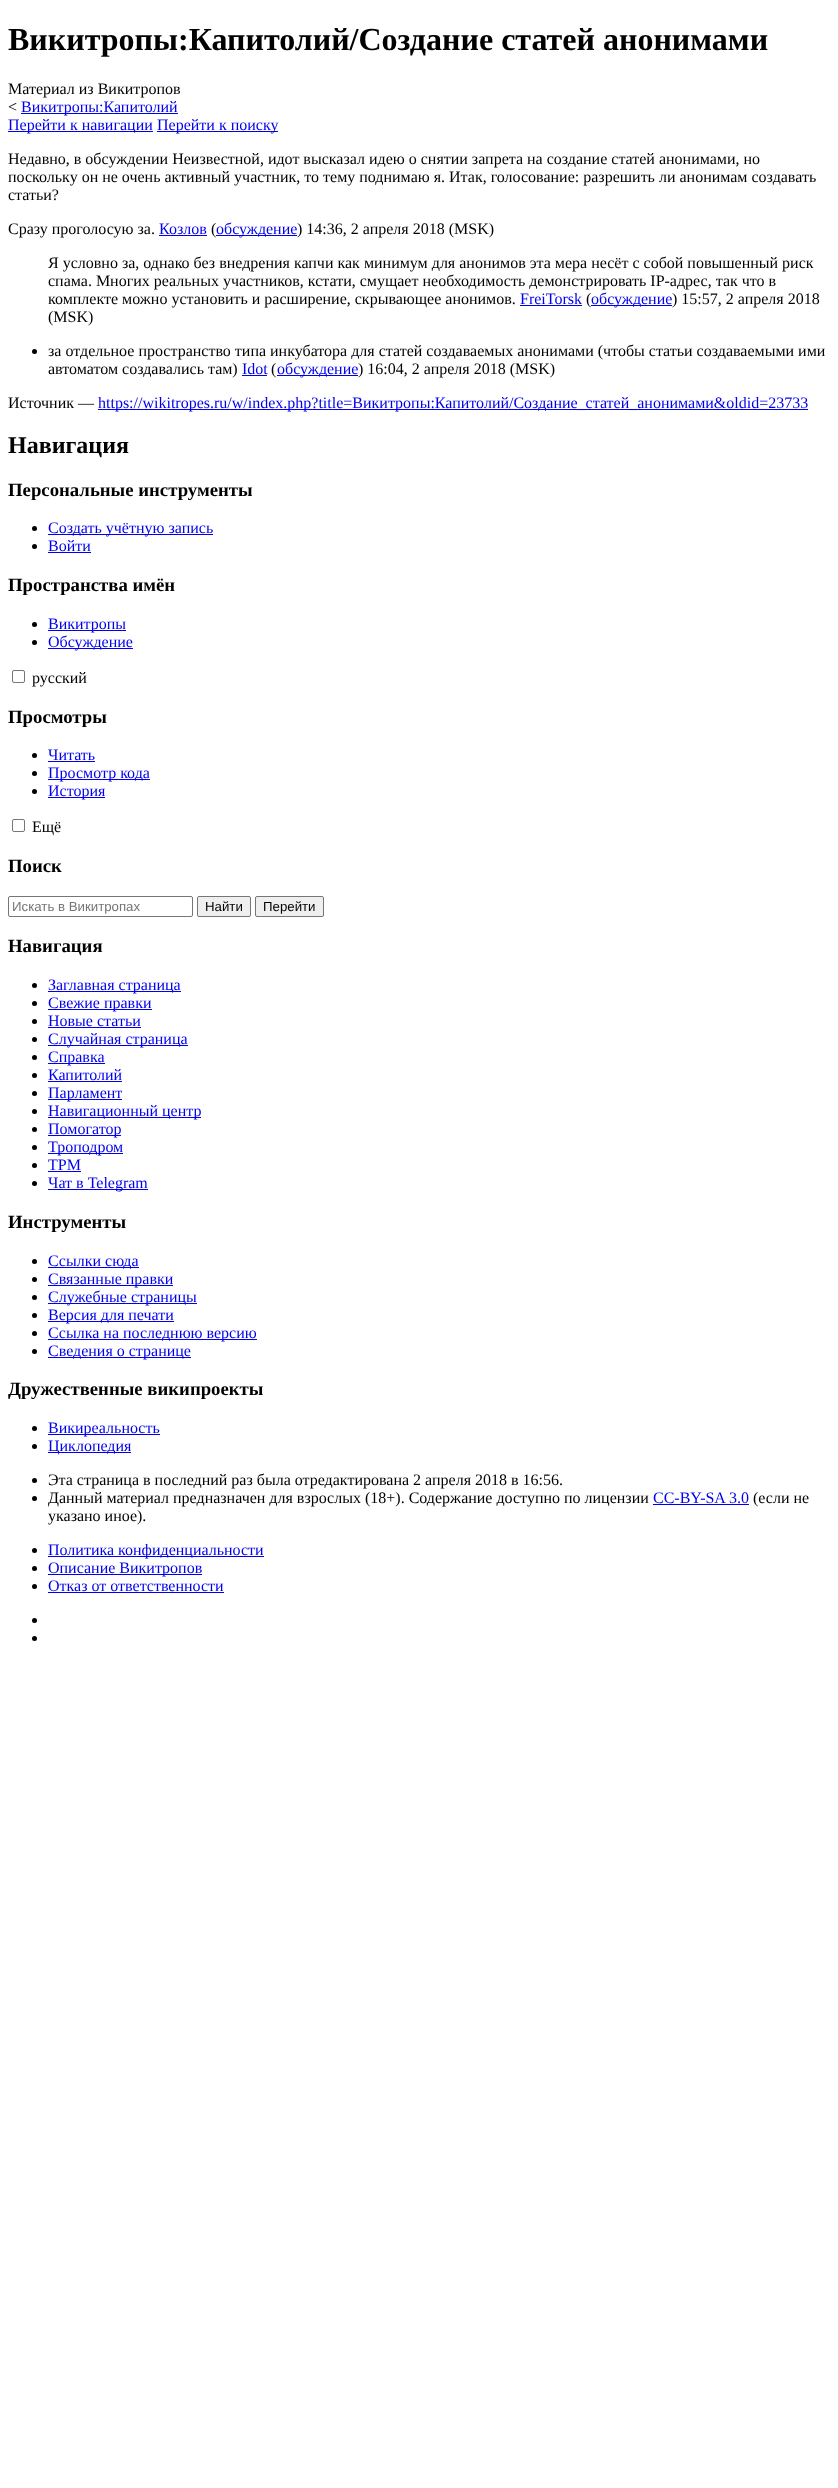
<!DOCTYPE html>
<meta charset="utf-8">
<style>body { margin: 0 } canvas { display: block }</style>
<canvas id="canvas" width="838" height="2488"></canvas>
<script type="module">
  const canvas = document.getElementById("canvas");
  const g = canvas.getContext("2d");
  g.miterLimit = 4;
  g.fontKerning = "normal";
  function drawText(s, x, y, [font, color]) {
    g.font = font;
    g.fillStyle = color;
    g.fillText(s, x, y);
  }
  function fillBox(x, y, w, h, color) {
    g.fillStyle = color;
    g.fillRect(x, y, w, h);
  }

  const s1 = ["bold 32px Liberation Serif", "#000000"];
  const s2 = ["16px Liberation Serif", "#000000"];
  const s3 = ["16px Liberation Serif", "#0000EE"];
  const s4 = ["bold 24px Liberation Serif", "#000000"];
  const s5 = ["bold 18.75px Liberation Serif", "#000000"];
  const s6 = ["13.25px Liberation Sans", "#757575"];
  const s7 = ["13.25px Liberation Sans", "#000000"];

  fillBox(0, 0, 838, 2488, "#FFFFFF");
  drawText("Викитропы:Капитолий/Создание статей анонимами", 8, 50, s1);
  drawText("Материал из Викитропов", 8, 94, s2);
  drawText("<", 8, 112, s2);
  fillBox(21, 113, 157, 1, "#0000EE");
  drawText("Викитропы:Капитолий", 21, 112, s3);
  fillBox(8, 131, 145, 1, "#0000EE");
  drawText("Перейти к навигации", 8, 130, s3);
  fillBox(157, 131, 121, 1, "#0000EE");
  drawText("Перейти к поиску", 157, 130, s3);
  drawText("Недавно, в обсуждении Неизвестной, идот высказал идею о снятии запрета на создание статей анонимами, но", 8, 164, s2);
  drawText("поскольку он не очень активный участник, то тему поднимаю я. Итак, голосование: разрешить ли анонимам создавать", 8, 182, s2);
  drawText("статьи?", 8, 200, s2);
  drawText("Сразу проголосую за.", 8, 234, s2);
  drawText("Козлов", 159, 234, s3);
  fillBox(159, 235, 48, 1, "#0000EE");
  drawText("(", 211, 234, s2);
  fillBox(216, 235, 81, 1, "#0000EE");
  drawText("обсуждение", 216, 234, s3);
  drawText(") 14:36, 2 апреля 2018 (MSK)", 297, 234, s2);
  drawText("Я условно за, однако без внедрения капчи как минимум для анонимов эта мера несёт с собой повышенный риск", 48, 268, s2);
  drawText("спама. Многих реальных участников, кстати, смущает необходимость демонстрировать IP-адрес, так что в", 48, 286, s2);
  drawText("комплекте можно установить и расширение, скрывающее анонимов.", 48, 304, s2);
  drawText("FreiTorsk", 520, 304, s3);
  fillBox(520, 305, 62, 1, "#0000EE");
  drawText("(", 586, 304, s2);
  fillBox(591, 305, 81, 1, "#0000EE");
  drawText("обсуждение", 591, 304, s3);
  drawText(") 15:57, 2 апреля 2018", 672, 304, s2);
  drawText("(MSK)", 48, 322, s2);
  g.beginPath();
  g.arc(34.5, 351.5, 2.5, 0, Math.PI * 2);
  g.fill();
  drawText("за отдельное пространство типа инкубатора для статей создаваемых анонимами (чтобы статьи создаваемыми ими", 48, 356, s2);
  drawText("автоматом создавались там)", 48, 374, s2);
  drawText("Idot", 242, 374, s3);
  fillBox(242, 375, 25, 1, "#0000EE");
  drawText("(", 271, 374, s2);
  fillBox(277, 375, 81, 1, "#0000EE");
  drawText("обсуждение", 277, 374, s3);
  drawText(") 16:04, 2 апреля 2018 (MSK)", 358, 374, s2);
  drawText("Источник —", 8, 408, s2);
  fillBox(98, 409, 710, 1, "#0000EE");
  drawText("https://wikitropes.ru/w/index.php?title=Викитропы:Капитолий/Создание_статей_анонимами&oldid=23733", 98, 408, s3);
  drawText("Навигация", 8, 453, s4);
  drawText("Персональные инструменты", 8, 496, s5);
  g.beginPath();
  g.arc(34.5, 528.5, 2.5, 0, Math.PI * 2);
  g.fill();
  fillBox(48, 534, 165, 1, "#0000EE");
  drawText("Создать учётную запись", 48, 533, s3);
  g.fillStyle = "#000000";
  g.beginPath();
  g.arc(34.5, 546.5, 2.5, 0, Math.PI * 2);
  g.fill();
  drawText("Войти", 48, 551, s3);
  fillBox(48, 552, 43, 1, "#0000EE");
  drawText("Пространства имён", 8, 591, s5);
  g.beginPath();
  g.arc(34.5, 624.5, 2.5, 0, Math.PI * 2);
  g.fill();
  fillBox(48, 630, 78, 1, "#0000EE");
  drawText("Викитропы", 48, 629, s3);
  g.fillStyle = "#000000";
  g.beginPath();
  g.arc(34.5, 642.5, 2.5, 0, Math.PI * 2);
  g.fill();
  fillBox(48, 648, 85, 1, "#0000EE");
  drawText("Обсуждение", 48, 647, s3);
  g.beginPath();
  g.roundRect(12.5, 670.5, 12, 12, 1.5);
  g.strokeStyle = "#767676";
  g.stroke();
  drawText("русский", 32, 683, s2);
  drawText("Просмотры", 8, 723, s5);
  g.beginPath();
  g.arc(34.5, 755.5, 2.5, 0, Math.PI * 2);
  g.fill();
  drawText("Читать", 48, 760, s3);
  fillBox(48, 761, 47, 1, "#0000EE");
  g.fillStyle = "#000000";
  g.beginPath();
  g.arc(34.5, 773.5, 2.5, 0, Math.PI * 2);
  g.fill();
  fillBox(48, 779, 102, 1, "#0000EE");
  drawText("Просмотр кода", 48, 778, s3);
  g.fillStyle = "#000000";
  g.beginPath();
  g.arc(34.5, 791.5, 2.5, 0, Math.PI * 2);
  g.fill();
  fillBox(48, 797, 57, 1, "#0000EE");
  drawText("История", 48, 796, s3);
  g.beginPath();
  g.roundRect(12.5, 819.5, 12, 12, 1.5);
  g.stroke();
  drawText("Ещё", 32, 832, s2);
  drawText("Поиск", 8, 872, s5);
  g.beginPath();
  g.roundRect(8.5, 896.5, 184, 20, 1.5);
  g.stroke();
  drawText("Искать в Викитропах", 12, 911, s6);
  g.fillStyle = "#EFEFEF";
  g.beginPath();
  g.roundRect(197.5, 896.5, 53, 20, 1.5);
  g.fill();
  g.stroke();
  drawText("Найти", 205, 911, s7);
  g.fillStyle = "#EFEFEF";
  g.beginPath();
  g.roundRect(255.5, 896.5, 68, 20, 1.5);
  g.fill();
  g.stroke();
  drawText("Перейти", 263, 911, s7);
  drawText("Навигация", 8, 952, s5);
  g.beginPath();
  g.arc(34.5, 985.5, 2.5, 0, Math.PI * 2);
  g.fill();
  fillBox(48, 991, 133, 1, "#0000EE");
  drawText("Заглавная страница", 48, 990, s3);
  g.fillStyle = "#000000";
  g.beginPath();
  g.arc(34.5, 1003.5, 2.5, 0, Math.PI * 2);
  g.fill();
  fillBox(48, 1009, 104, 1, "#0000EE");
  drawText("Свежие правки", 48, 1008, s3);
  g.fillStyle = "#000000";
  g.beginPath();
  g.arc(34.5, 1021.5, 2.5, 0, Math.PI * 2);
  g.fill();
  drawText("Новые статьи", 48, 1026, s3);
  fillBox(48, 1027, 93, 1, "#0000EE");
  g.fillStyle = "#000000";
  g.beginPath();
  g.arc(34.5, 1039.5, 2.5, 0, Math.PI * 2);
  g.fill();
  fillBox(48, 1045, 140, 1, "#0000EE");
  drawText("Случайная страница", 48, 1044, s3);
  g.fillStyle = "#000000";
  g.beginPath();
  g.arc(34.5, 1057.5, 2.5, 0, Math.PI * 2);
  g.fill();
  fillBox(48, 1063, 57, 1, "#0000EE");
  drawText("Справка", 48, 1062, s3);
  g.fillStyle = "#000000";
  g.beginPath();
  g.arc(34.5, 1075.5, 2.5, 0, Math.PI * 2);
  g.fill();
  drawText("Капитолий", 48, 1080, s3);
  fillBox(48, 1081, 74, 1, "#0000EE");
  g.fillStyle = "#000000";
  g.beginPath();
  g.arc(34.5, 1093.5, 2.5, 0, Math.PI * 2);
  g.fill();
  fillBox(48, 1099, 74, 1, "#0000EE");
  drawText("Парламент", 48, 1098, s3);
  g.fillStyle = "#000000";
  g.beginPath();
  g.arc(34.5, 1111.5, 2.5, 0, Math.PI * 2);
  g.fill();
  fillBox(48, 1117, 153, 1, "#0000EE");
  drawText("Навигационный центр", 48, 1116, s3);
  g.fillStyle = "#000000";
  g.beginPath();
  g.arc(34.5, 1129.5, 2.5, 0, Math.PI * 2);
  g.fill();
  fillBox(48, 1135, 73, 1, "#0000EE");
  drawText("Помогатор", 48, 1134, s3);
  g.fillStyle = "#000000";
  g.beginPath();
  g.arc(34.5, 1147.5, 2.5, 0, Math.PI * 2);
  g.fill();
  fillBox(48, 1153, 75, 1, "#0000EE");
  drawText("Троподром", 48, 1152, s3);
  g.fillStyle = "#000000";
  g.beginPath();
  g.arc(34.5, 1165.5, 2.5, 0, Math.PI * 2);
  g.fill();
  drawText("ТРМ", 48, 1170, s3);
  fillBox(48, 1171, 33, 1, "#0000EE");
  g.fillStyle = "#000000";
  g.beginPath();
  g.arc(34.5, 1183.5, 2.5, 0, Math.PI * 2);
  g.fill();
  fillBox(48, 1189, 100, 1, "#0000EE");
  drawText("Чат в Telegram", 48, 1188, s3);
  drawText("Инструменты", 8, 1228, s5);
  g.beginPath();
  g.arc(34.5, 1261.5, 2.5, 0, Math.PI * 2);
  g.fill();
  fillBox(48, 1267, 91, 1, "#0000EE");
  drawText("Ссылки сюда", 48, 1266, s3);
  g.fillStyle = "#000000";
  g.beginPath();
  g.arc(34.5, 1279.5, 2.5, 0, Math.PI * 2);
  g.fill();
  fillBox(48, 1285, 125, 1, "#0000EE");
  drawText("Связанные правки", 48, 1284, s3);
  g.fillStyle = "#000000";
  g.beginPath();
  g.arc(34.5, 1297.5, 2.5, 0, Math.PI * 2);
  g.fill();
  fillBox(48, 1303, 149, 1, "#0000EE");
  drawText("Служебные страницы", 48, 1302, s3);
  g.fillStyle = "#000000";
  g.beginPath();
  g.arc(34.5, 1315.5, 2.5, 0, Math.PI * 2);
  g.fill();
  fillBox(48, 1321, 126, 1, "#0000EE");
  drawText("Версия для печати", 48, 1320, s3);
  g.fillStyle = "#000000";
  g.beginPath();
  g.arc(34.5, 1333.5, 2.5, 0, Math.PI * 2);
  g.fill();
  fillBox(48, 1339, 209, 1, "#0000EE");
  drawText("Ссылка на последнюю версию", 48, 1338, s3);
  g.fillStyle = "#000000";
  g.beginPath();
  g.arc(34.5, 1351.5, 2.5, 0, Math.PI * 2);
  g.fill();
  fillBox(48, 1357, 143, 1, "#0000EE");
  drawText("Сведения о странице", 48, 1356, s3);
  drawText("Дружественные википроекты", 8, 1395, s5);
  g.beginPath();
  g.arc(34.5, 1428.5, 2.5, 0, Math.PI * 2);
  g.fill();
  fillBox(48, 1434, 112, 1, "#0000EE");
  drawText("Викиреальность", 48, 1433, s3);
  g.fillStyle = "#000000";
  g.beginPath();
  g.arc(34.5, 1446.5, 2.5, 0, Math.PI * 2);
  g.fill();
  fillBox(48, 1452, 83, 1, "#0000EE");
  drawText("Циклопедия", 48, 1451, s3);
  g.fillStyle = "#000000";
  g.beginPath();
  g.arc(34.5, 1480.5, 2.5, 0, Math.PI * 2);
  g.fill();
  drawText("Эта страница в последний раз была отредактирована 2 апреля 2018 в 16:56.", 48, 1485, s2);
  g.beginPath();
  g.arc(34.5, 1498.5, 2.5, 0, Math.PI * 2);
  g.fill();
  drawText("Данный материал предназначен для взрослых (18+). Содержание доступно по лицензии", 48, 1503, s2);
  drawText("CC-BY-SA 3.0", 653, 1503, s3);
  fillBox(653, 1504, 96, 1, "#0000EE");
  drawText("(если не", 753, 1503, s2);
  drawText("указано иное).", 48, 1521, s2);
  g.beginPath();
  g.arc(34.5, 1550.5, 2.5, 0, Math.PI * 2);
  g.fill();
  fillBox(48, 1556, 216, 1, "#0000EE");
  drawText("Политика конфиденциальности", 48, 1555, s3);
  g.fillStyle = "#000000";
  g.beginPath();
  g.arc(34.5, 1568.5, 2.5, 0, Math.PI * 2);
  g.fill();
  fillBox(48, 1574, 154, 1, "#0000EE");
  drawText("Описание Викитропов", 48, 1573, s3);
  g.fillStyle = "#000000";
  g.beginPath();
  g.arc(34.5, 1586.5, 2.5, 0, Math.PI * 2);
  g.fill();
  drawText("Отказ от ответственности", 48, 1591, s3);
  fillBox(48, 1592, 176, 1, "#0000EE");
  g.fillStyle = "#000000";
  g.beginPath();
  g.arc(34.5, 1620.5, 2.5, 0, Math.PI * 2);
  g.fill();
  g.beginPath();
  g.arc(34.5, 1638.5, 2.5, 0, Math.PI * 2);
  g.fill();
</script>
